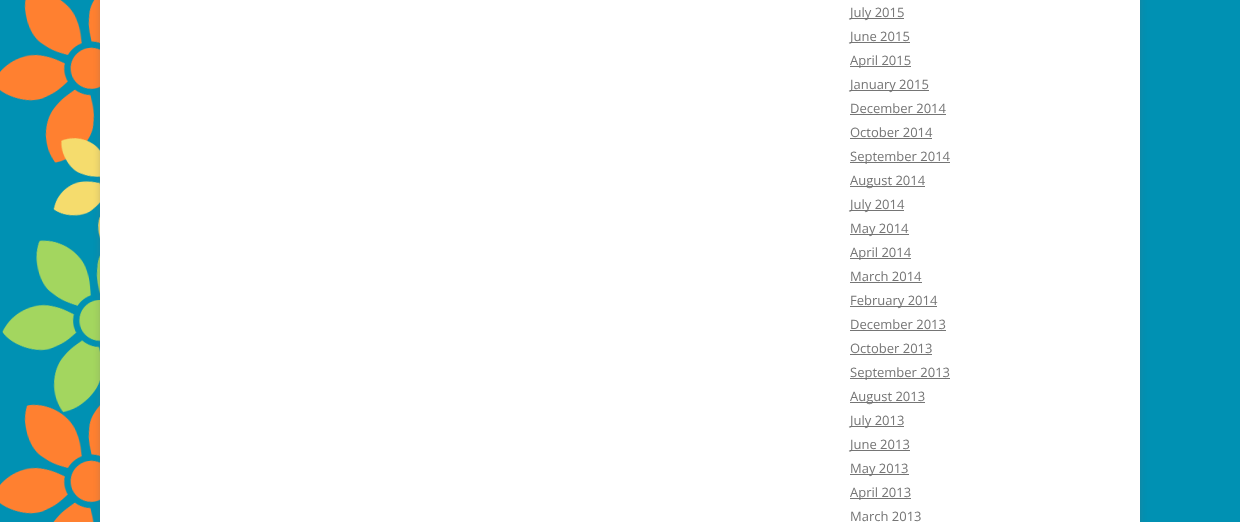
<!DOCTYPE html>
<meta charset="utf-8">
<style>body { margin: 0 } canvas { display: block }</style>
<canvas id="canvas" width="1240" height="522"></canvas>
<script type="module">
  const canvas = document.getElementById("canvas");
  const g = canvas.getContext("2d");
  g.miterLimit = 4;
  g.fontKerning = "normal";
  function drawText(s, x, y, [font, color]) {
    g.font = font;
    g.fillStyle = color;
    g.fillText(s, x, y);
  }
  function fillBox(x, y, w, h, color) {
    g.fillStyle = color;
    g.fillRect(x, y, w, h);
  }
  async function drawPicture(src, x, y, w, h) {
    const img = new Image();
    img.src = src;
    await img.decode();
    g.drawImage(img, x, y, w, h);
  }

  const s1 = ["13px Open Sans", "#757575"];

  fillBox(0, 0, 1240, 522, "#0091B3");
  await drawPicture("pic1.png", 0, 0, 100, 522);
  g.fillStyle = "rgba(100, 100, 100, 0.3)";
  g.filter = "blur(3px)";
  g.beginPath();
  g.rect(100, -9, 1040, 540);
  g.fill();
  g.filter = "none";
  fillBox(100, 0, 1040, 522, "#FFFFFF");
  fillBox(850, 18, 54, 1, "#757575");
  drawText("July 2015", 850, 17, s1);
  fillBox(850, 42, 60, 1, "#757575");
  drawText("June 2015", 850, 41, s1);
  fillBox(850, 66, 61, 1, "#757575");
  drawText("April 2015", 850, 65, s1);
  fillBox(850, 90, 79, 1, "#757575");
  drawText("January 2015", 850, 89, s1);
  drawText("December 2014", 850, 113, s1);
  fillBox(850, 114, 96, 1, "#757575");
  drawText("October 2014", 850, 137, s1);
  fillBox(850, 138, 82, 1, "#757575");
  fillBox(850, 162, 100, 1, "#757575");
  drawText("September 2014", 850, 161, s1);
  fillBox(850, 186, 75, 1, "#757575");
  drawText("August 2014", 850, 185, s1);
  fillBox(850, 210, 54, 1, "#757575");
  drawText("July 2014", 850, 209, s1);
  fillBox(850, 234, 59, 1, "#757575");
  drawText("May 2014", 850, 233, s1);
  fillBox(850, 258, 61, 1, "#757575");
  drawText("April 2014", 850, 257, s1);
  drawText("March 2014", 850, 281, s1);
  fillBox(850, 282, 72, 1, "#757575");
  fillBox(850, 306, 87, 1, "#757575");
  drawText("February 2014", 850, 305, s1);
  drawText("December 2013", 850, 329, s1);
  fillBox(850, 330, 96, 1, "#757575");
  drawText("October 2013", 850, 353, s1);
  fillBox(850, 354, 82, 1, "#757575");
  fillBox(850, 378, 100, 1, "#757575");
  drawText("September 2013", 850, 377, s1);
  fillBox(850, 402, 75, 1, "#757575");
  drawText("August 2013", 850, 401, s1);
  fillBox(850, 426, 54, 1, "#757575");
  drawText("July 2013", 850, 425, s1);
  fillBox(850, 450, 60, 1, "#757575");
  drawText("June 2013", 850, 449, s1);
  fillBox(850, 474, 59, 1, "#757575");
  drawText("May 2013", 850, 473, s1);
  fillBox(850, 498, 61, 1, "#757575");
  drawText("April 2013", 850, 497, s1);
  drawText("March 2013", 850, 521, s1);
</script>
